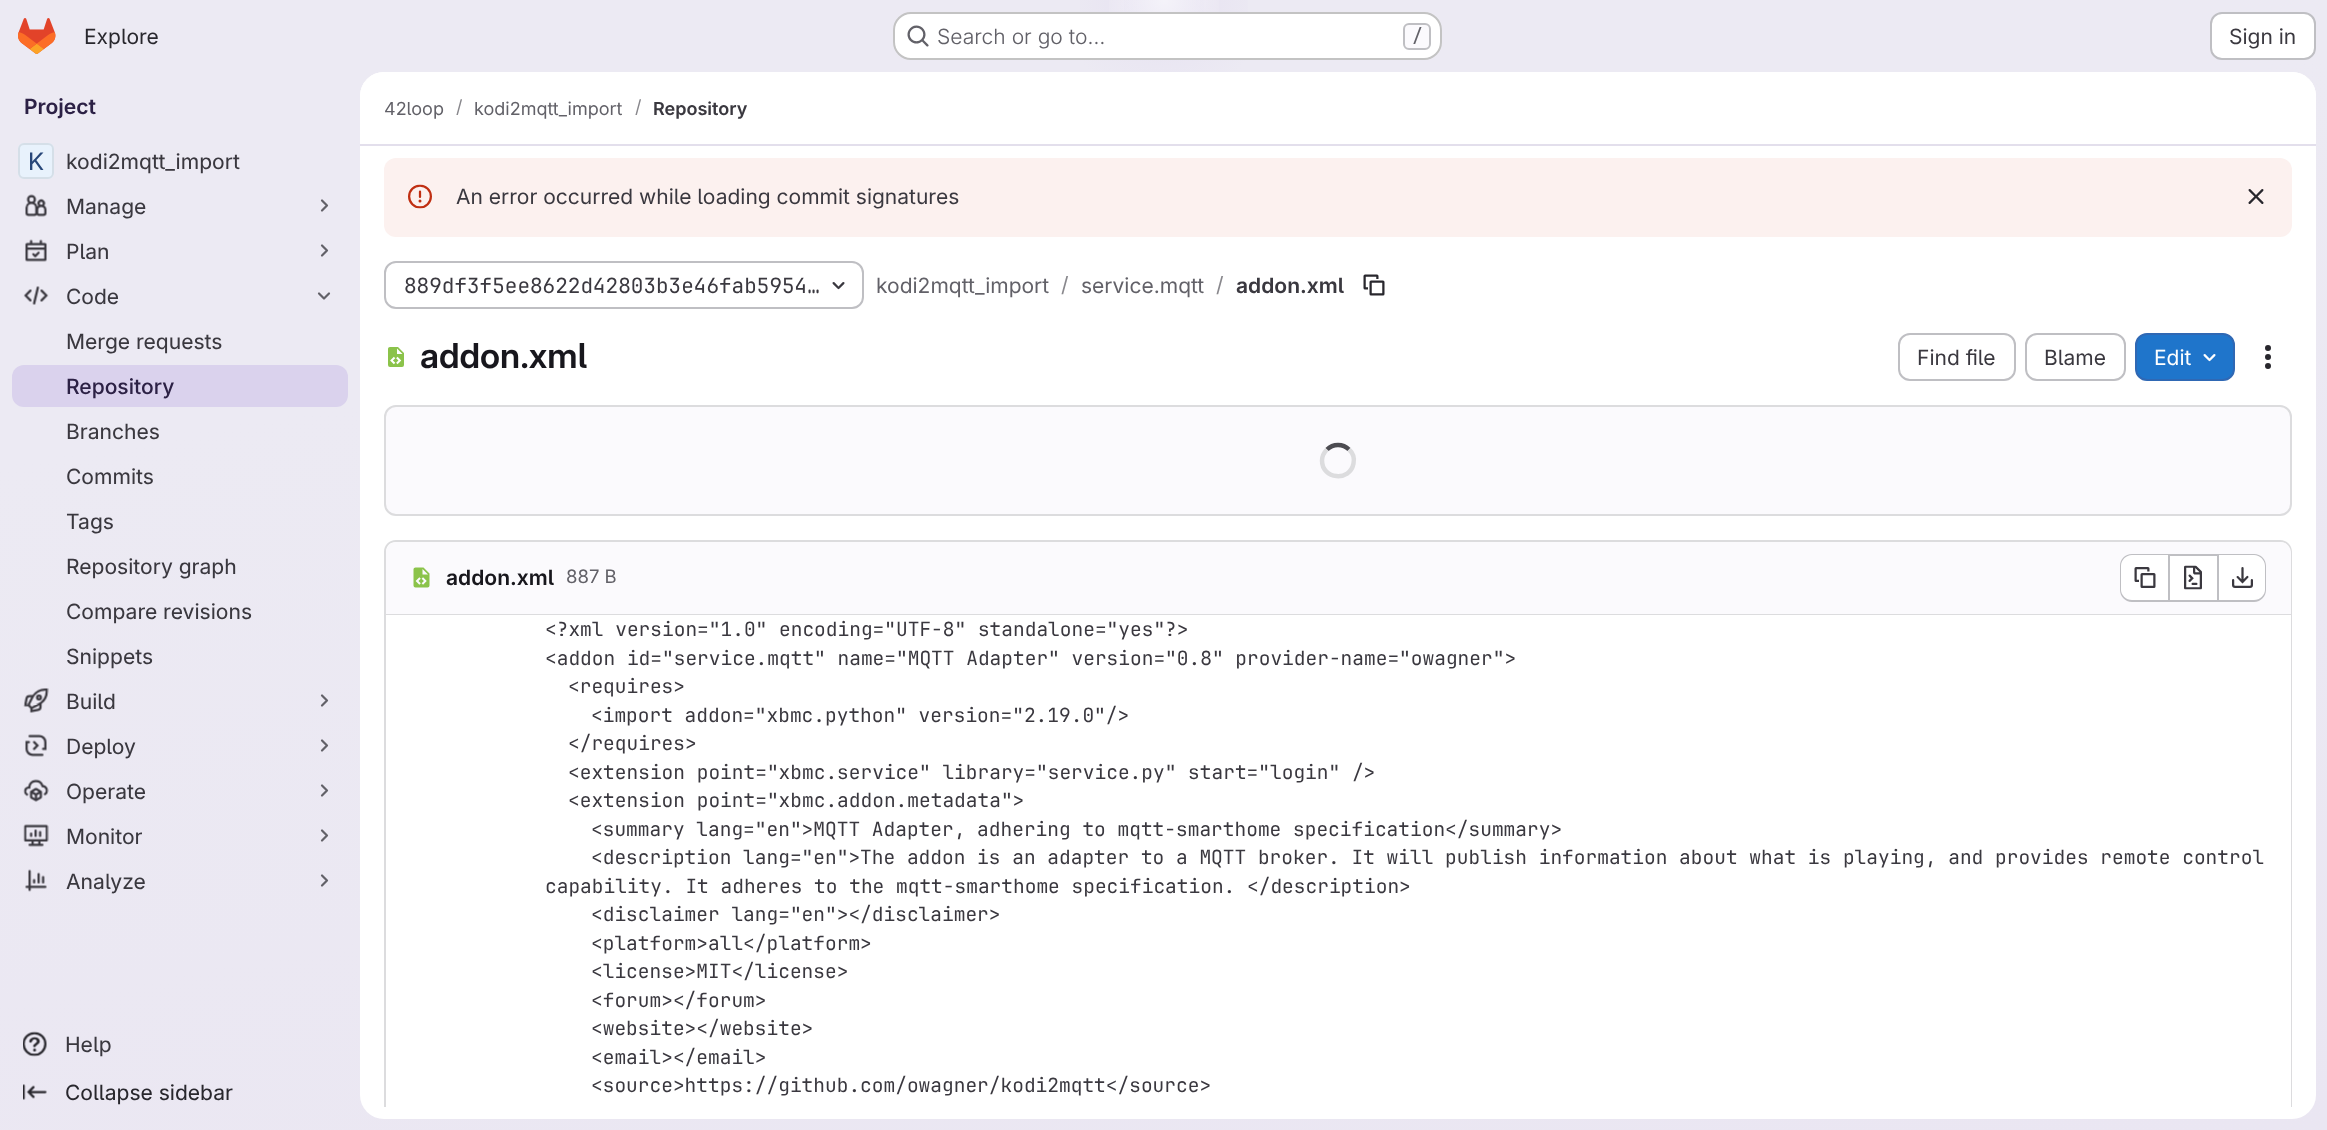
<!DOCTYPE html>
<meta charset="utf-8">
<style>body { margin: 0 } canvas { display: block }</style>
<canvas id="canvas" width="2327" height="1130"></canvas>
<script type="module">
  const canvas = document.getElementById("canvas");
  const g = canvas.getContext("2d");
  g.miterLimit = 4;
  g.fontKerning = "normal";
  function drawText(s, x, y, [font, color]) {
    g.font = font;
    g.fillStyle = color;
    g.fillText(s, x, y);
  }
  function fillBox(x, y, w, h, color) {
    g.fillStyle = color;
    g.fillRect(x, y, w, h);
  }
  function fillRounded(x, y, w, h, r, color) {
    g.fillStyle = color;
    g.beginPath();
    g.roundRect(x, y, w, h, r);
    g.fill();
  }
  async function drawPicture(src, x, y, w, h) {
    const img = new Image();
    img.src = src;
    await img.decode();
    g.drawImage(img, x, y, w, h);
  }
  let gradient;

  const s1 = ["21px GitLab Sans", "#28272D"];
  const s2 = ["300 21px GitLab Sans", "#626168"];
  const s3 = ["500 18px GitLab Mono", "#626168"];
  const s4 = ["21px GitLab Sans", "#3A383F"];
  const s5 = ["600 21px GitLab Sans", "#2C2145"];
  const s6 = ["24px 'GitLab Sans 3'", "#284779"];
  const s7 = ["21px 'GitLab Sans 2'", "#3A383F"];
  const s8 = ["500 21px GitLab Sans", "#2C2145"];
  const s9 = ["21px 'GitLab Sans 2'", "#28272D"];
  const s10 = ["18px GitLab Sans", "#626168"];
  const s11 = ["18px GitLab Sans", "#89888D"];
  const s12 = ["600 18px GitLab Sans", "#3A383F"];
  const s13 = ["21px GitLab Mono", "#3A383F"];
  const s14 = ["21px GitLab Sans", "#626168"];
  const s15 = ["21px GitLab Sans", "#89888D"];
  const s16 = ["600 21px GitLab Sans", "#3A383F"];
  const s17 = ["600 34.5px 'GitLab Sans 2'", "#18171D"];
  const s18 = ["21px GitLab Sans", "#FFFFFF"];
  const s19 = ["600 21px GitLab Sans", "#18171D"];
  const s20 = ["18.5px GitLab Sans", "#626168"];
  const s21 = ["19.5px GitLab Mono", "#3A383F"];

  fillBox(0, 0, 2327, 1130, "#FFFFFF");
  gradient = g.createLinearGradient(1296, 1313, 1032, -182);
  gradient.addColorStop(0, "#EAE6F2");
  gradient.addColorStop(0.7, "#ECEAF3");
  g.fillStyle = gradient;
  g.fillRect(0, 0, 2327, 1130);
  gradient = g.createRadialGradient(1164, 0, 0, 1164, 0, 1164);
  gradient.addColorStop(0, "#E6E1F1");
  gradient.addColorStop(0.09, "rgba(230, 225, 241, 0)");
  g.fillStyle = gradient;
  g.beginPath();
  g.rect(1080, 0, 168, 72);
  g.save();
  g.clip();
  g.scale(1, 1131 / 1164);
  g.fillRect(0, 0, 2327, 1163);
  g.restore();
  gradient = g.createRadialGradient(1164, 0, 0, 1164, 0, 1164);
  gradient.addColorStop(0, "#E5E1F1");
  gradient.addColorStop(0.06, "rgba(229, 225, 241, 0)");
  g.fillStyle = gradient;
  g.beginPath();
  g.rect(1124, 0, 80, 36);
  g.save();
  g.clip();
  g.scale(1, 1131 / 1164);
  g.fillRect(0, 0, 2327, 1163);
  g.restore();
  gradient = g.createRadialGradient(1164, 0, 0, 1164, 0, 1623);
  gradient.addColorStop(0, "rgba(255, 255, 255, 0.6)");
  gradient.addColorStop(0.04, "rgba(255, 255, 255, 0)");
  g.fillStyle = gradient;
  g.fillRect(1109, 0, 110, 12);
  await drawPicture("pic1.png", 18, 18, 38, 36);
  drawText("Explore", 84, 44, s1);
  fillRounded(893, 12, 549, 48, 18, "#FFFFFF");
  g.beginPath();
  g.roundRect(894, 13, 547, 46, 17);
  g.strokeStyle = "rgba(5, 5, 6, 0.24)";
  g.lineWidth = 2;
  g.stroke();
  await drawPicture("pic2.png", 907, 25, 22, 22);
  drawText("Search or go to…", 937, 44, s2);
  g.fillStyle = "#FBFAFD";
  g.beginPath();
  g.roundRect(1404, 24, 26, 25, 5);
  g.fill();
  g.strokeStyle = "#BFBFC3";
  g.stroke();
  drawText("/", 1412, 42, s3);
  g.fillStyle = "#FFFFFF";
  g.beginPath();
  g.roundRect(2211, 13, 104, 46, 11);
  g.fill();
  g.stroke();
  drawText("Sign in", 2229, 44, s4);
  drawText("Project", 24, 114, s5);
  fillRounded(18, 143, 36, 36, 6, "#FFFFFF");
  fillRounded(18, 143, 36, 36, 6, "rgba(157, 199, 241, 0.24)");
  g.beginPath();
  g.roundRect(19, 144, 34, 34, 5);
  g.strokeStyle = "#D5DFE8";
  g.stroke();
  drawText("K", 28, 170, s6);
  drawText("kodi2mqtt_import", 66, 169, s7);
  await drawPicture("pic3.png", 25, 194, 22, 23);
  drawText("Manage", 66, 214, s7);
  g.beginPath();
  g.moveTo(322, 200.5);
  g.lineTo(327, 205.5);
  g.lineTo(322, 210.5);
  g.strokeStyle = "#626168";
  g.lineWidth = 2.2;
  g.lineCap = "round";
  g.lineJoin = "round";
  g.stroke();
  await drawPicture("pic4.png", 25, 239, 22, 23);
  drawText("Plan", 66, 259, s7);
  g.beginPath();
  g.moveTo(322, 245.5);
  g.lineTo(327, 250.5);
  g.lineTo(322, 255.5);
  g.stroke();
  await drawPicture("pic5.png", 23, 286, 26, 19);
  drawText("Code", 66, 304, s7);
  g.beginPath();
  g.moveTo(329, 293.5);
  g.lineTo(324, 298.5);
  g.lineTo(319, 293.5);
  g.stroke();
  drawText("Merge requests", 66, 349, s7);
  fillRounded(12, 365, 336, 42, 12, "#DAD2ED");
  drawText("Repository", 66, 394, s8);
  drawText("Branches", 66, 439, s7);
  drawText("Commits", 66, 484, s7);
  drawText("Tags", 66, 529, s7);
  drawText("Repository graph", 66, 574, s7);
  drawText("Compare revisions", 66, 619, s7);
  drawText("Snippets", 66, 664, s7);
  await drawPicture("pic6.png", 23, 688, 26, 25);
  drawText("Build", 66, 709, s7);
  g.beginPath();
  g.moveTo(322, 695.5);
  g.lineTo(327, 700.5);
  g.lineTo(322, 705.5);
  g.stroke();
  await drawPicture("pic7.png", 25, 734, 22, 23);
  drawText("Deploy", 66, 754, s7);
  g.beginPath();
  g.moveTo(322, 740.5);
  g.lineTo(327, 745.5);
  g.lineTo(322, 750.5);
  g.stroke();
  await drawPicture("pic8.png", 23, 779, 26, 23);
  drawText("Operate", 66, 799, s7);
  g.beginPath();
  g.moveTo(322, 785.5);
  g.lineTo(327, 790.5);
  g.lineTo(322, 795.5);
  g.stroke();
  await drawPicture("pic9.png", 23, 824, 26, 23);
  drawText("Monitor", 66, 844, s7);
  g.beginPath();
  g.moveTo(322, 830.5);
  g.lineTo(327, 835.5);
  g.lineTo(322, 840.5);
  g.stroke();
  await drawPicture("pic10.png", 25, 869, 22, 23);
  drawText("Analyze", 66, 889, s7);
  g.beginPath();
  g.moveTo(322, 875.5);
  g.lineTo(327, 880.5);
  g.lineTo(322, 885.5);
  g.stroke();
  await drawPicture("pic11.png", 23, 1031, 24, 26);
  drawText("Help", 65, 1052, s7);
  await drawPicture("pic12.png", 23, 1084, 24, 16);
  drawText("Collapse sidebar", 65, 1100, s9);
  fillRounded(360, 72, 1956, 1047, 24, "#FFFFFF");
  g.beginPath();
  g.roundRect(360, 72, 1956, 74, [24, 24, 0, 0]);
  g.fill();
  fillBox(360, 144, 1956, 2, "#E3DFEC");
  drawText("42loop", 384, 115, s10);
  drawText("/", 456, 113, s11);
  drawText("kodi2mqtt_import", 474, 115, s10);
  drawText("/", 635, 113, s11);
  drawText("Repository", 653, 115, s12);
  fillRounded(384, 158, 1908, 79, 12, "#FCF1EF");
  await drawPicture("pic13.png", 408, 184, 24, 25);
  drawText("An error occurred while loading commit signatures", 456, 204, s4);
  await drawPicture("pic14.png", 2248, 189, 16, 15);
  g.beginPath();
  g.roundRect(385, 262, 478, 46, 11);
  g.strokeStyle = "#BFBFC3";
  g.lineWidth = 2;
  g.lineJoin = "miter";
  g.stroke();
  drawText("889df3f5ee8622d42803b3e46fab5954…", 404, 293, s13);
  await drawPicture("pic15.png", 832, 282, 13, 8);
  drawText("kodi2mqtt_import", 876, 293, s14);
  drawText("/", 1061, 292, s15);
  drawText("service.mqtt", 1081, 293, s14);
  drawText("/", 1216, 292, s15);
  drawText("addon.xml", 1236, 293, s16);
  await drawPicture("pic16.png", 1363, 274, 22, 22);
  await drawPicture("pic17.png", 388, 347, 16, 20);
  drawText("addon.xml", 420, 368, s17);
  g.beginPath();
  g.roundRect(1899, 334, 116, 46, 11);
  g.stroke();
  drawText("Find file", 1917, 365, s4);
  g.beginPath();
  g.roundRect(2026, 334, 99, 46, 11);
  g.stroke();
  drawText("Blame", 2044, 365, s4);
  g.fillStyle = "#1F75CB";
  g.beginPath();
  g.roundRect(2136, 334, 98, 46, 11);
  g.fill();
  g.strokeStyle = "#2F68B4";
  g.stroke();
  drawText("Edit", 2154, 365, s18);
  await drawPicture("pic18.png", 2203, 354, 13, 8);
  await drawPicture("pic19.png", 2265, 345, 6, 24);
  g.fillStyle = "#FBFAFD";
  g.beginPath();
  g.roundRect(385, 406, 1906, 109, 11);
  g.fill();
  g.strokeStyle = "#DCDCDE";
  g.stroke();
  g.beginPath();
  g.moveTo(1327, 449.5);
  g.bezierCurveTo(1333, 443.5, 1343, 443.5, 1349, 449.5);
  g.strokeStyle = "#4C4B51";
  g.lineWidth = 4.5;
  g.lineCap = "butt";
  g.stroke();
  g.beginPath();
  g.moveTo(1349, 449.5);
  g.bezierCurveTo(1353, 453, 1354.5, 458.5, 1353.5, 463.5);
  g.bezierCurveTo(1350, 482, 1322, 479.5, 1322, 460.5);
  g.bezierCurveTo(1322, 456.5, 1324, 452.5, 1327, 449.5);
  g.strokeStyle = "#DCDCDE";
  g.stroke();
  g.save();
  g.beginPath();
  g.rect(360, 146, 1956, 961);
  g.clip();
  g.fillStyle = "#DCDCDE";
  g.beginPath();
  g.moveTo(396, 540);
  g.bezierCurveTo(389, 540, 384, 545, 384, 552);
  g.lineTo(384, 1119);
  g.lineTo(386, 1119);
  g.lineTo(386, 552);
  g.bezierCurveTo(386, 546, 390, 542, 396, 542);
  g.lineTo(2280, 542);
  g.bezierCurveTo(2286, 542, 2290, 546, 2290, 552);
  g.lineTo(2290, 1119);
  g.lineTo(2292, 1119);
  g.lineTo(2292, 552);
  g.bezierCurveTo(2292, 545, 2287, 540, 2280, 540);
  g.closePath();
  g.fill();
  g.restore();
  g.beginPath();
  g.roundRect(386, 542, 1905, 73, [11, 11, 0, 0]);
  g.fill();
  fillBox(386, 614, 1905, 1, "#DCDCDE");
  await drawPicture("pic20.png", 413, 567, 17, 21);
  drawText("addon.xml", 446, 585, s19);
  drawText("887 B", 566, 583, s20);
  g.fillStyle = "#FFFFFF";
  g.beginPath();
  g.roundRect(2121, 555, 47, 45, [11, 0, 0, 11]);
  g.fill();
  g.fillStyle = "#BFBFC3";
  g.beginPath();
  g.moveTo(2132, 554);
  g.lineTo(2168, 554);
  g.lineTo(2168, 602);
  g.lineTo(2132, 602);
  g.bezierCurveTo(2125, 602, 2120, 596, 2120, 590);
  g.lineTo(2120, 566);
  g.bezierCurveTo(2120, 559, 2125, 554, 2132, 554);
  g.closePath();
  g.moveTo(2132, 555);
  g.lineTo(2168, 555);
  g.lineTo(2168, 600);
  g.lineTo(2132, 600);
  g.bezierCurveTo(2126, 600, 2121, 595, 2121, 590);
  g.lineTo(2121, 566);
  g.bezierCurveTo(2121, 560, 2126, 555, 2132, 555);
  g.closePath();
  g.fill("evenodd");
  await drawPicture("pic21.png", 2134, 567, 22, 21);
  fillBox(2170, 556, 47, 44, "#FFFFFF");
  fillBox(2169, 554, 48, 2, "#BFBFC3");
  fillBox(2169, 600, 48, 2, "#BFBFC3");
  fillBox(2168, 554, 2, 48, "#BFBFC3");
  await drawPicture("pic22.png", 2184, 565, 18, 25);
  g.fillStyle = "#FFFFFF";
  g.beginPath();
  g.roundRect(2219, 555, 46, 45, [0, 11, 11, 0]);
  g.fill();
  g.fillStyle = "#BFBFC3";
  g.beginPath();
  g.moveTo(2218, 554);
  g.lineTo(2254, 554);
  g.bezierCurveTo(2261, 554, 2266, 559, 2266, 566);
  g.lineTo(2266, 590);
  g.bezierCurveTo(2266, 596, 2261, 602, 2254, 602);
  g.lineTo(2218, 602);
  g.closePath();
  g.moveTo(2218, 555);
  g.lineTo(2254, 555);
  g.bezierCurveTo(2260, 555, 2265, 560, 2265, 566);
  g.lineTo(2265, 590);
  g.bezierCurveTo(2265, 595, 2260, 600, 2254, 600);
  g.lineTo(2218, 600);
  g.closePath();
  g.fill("evenodd");
  fillBox(2217, 554, 2, 48, "#BFBFC3");
  await drawPicture("pic23.png", 2232, 567, 21, 21);
  fillBox(2290, 615, 1, 492, "#FFFFFF");
  drawText("<?xml version=\"1.0\" encoding=\"UTF-8\" standalone=\"yes\"?>", 545, 636, s21);
  drawText("<addon id=\"service.mqtt\" name=\"MQTT Adapter\" version=\"0.8\" provider-name=\"owagner\">", 545, 665, s21);
  drawText("<requires>", 568, 693, s21);
  drawText("<import addon=\"xbmc.python\" version=\"2.19.0\"/>", 591, 722, s21);
  drawText("<\/requires>", 568, 750, s21);
  drawText("<extension point=\"xbmc.service\" library=\"service.py\" start=\"login\" />", 568, 779, s21);
  drawText("<extension point=\"xbmc.addon.metadata\">", 568, 807, s21);
  drawText("<summary lang=\"en\">MQTT Adapter, adhering to mqtt-smarthome specification<\/summary>", 591, 836, s21);
  drawText("<description lang=\"en\">The addon is an adapter to a MQTT broker. It will publish information about what is playing, and provides remote control", 591, 864, s21);
  drawText("capability. It adheres to the mqtt-smarthome specification. <\/description>", 545, 893, s21);
  drawText("<disclaimer lang=\"en\"><\/disclaimer>", 591, 921, s21);
  drawText("<platform>all<\/platform>", 591, 950, s21);
  drawText("<license>MIT<\/license>", 591, 978, s21);
  drawText("<forum><\/forum>", 591, 1007, s21);
  drawText("<website><\/website>", 591, 1035, s21);
  drawText("<email><\/email>", 591, 1064, s21);
  drawText("<source>https://github.com/owagner/kodi2mqtt<\/source>", 591, 1092, s21);
</script>
